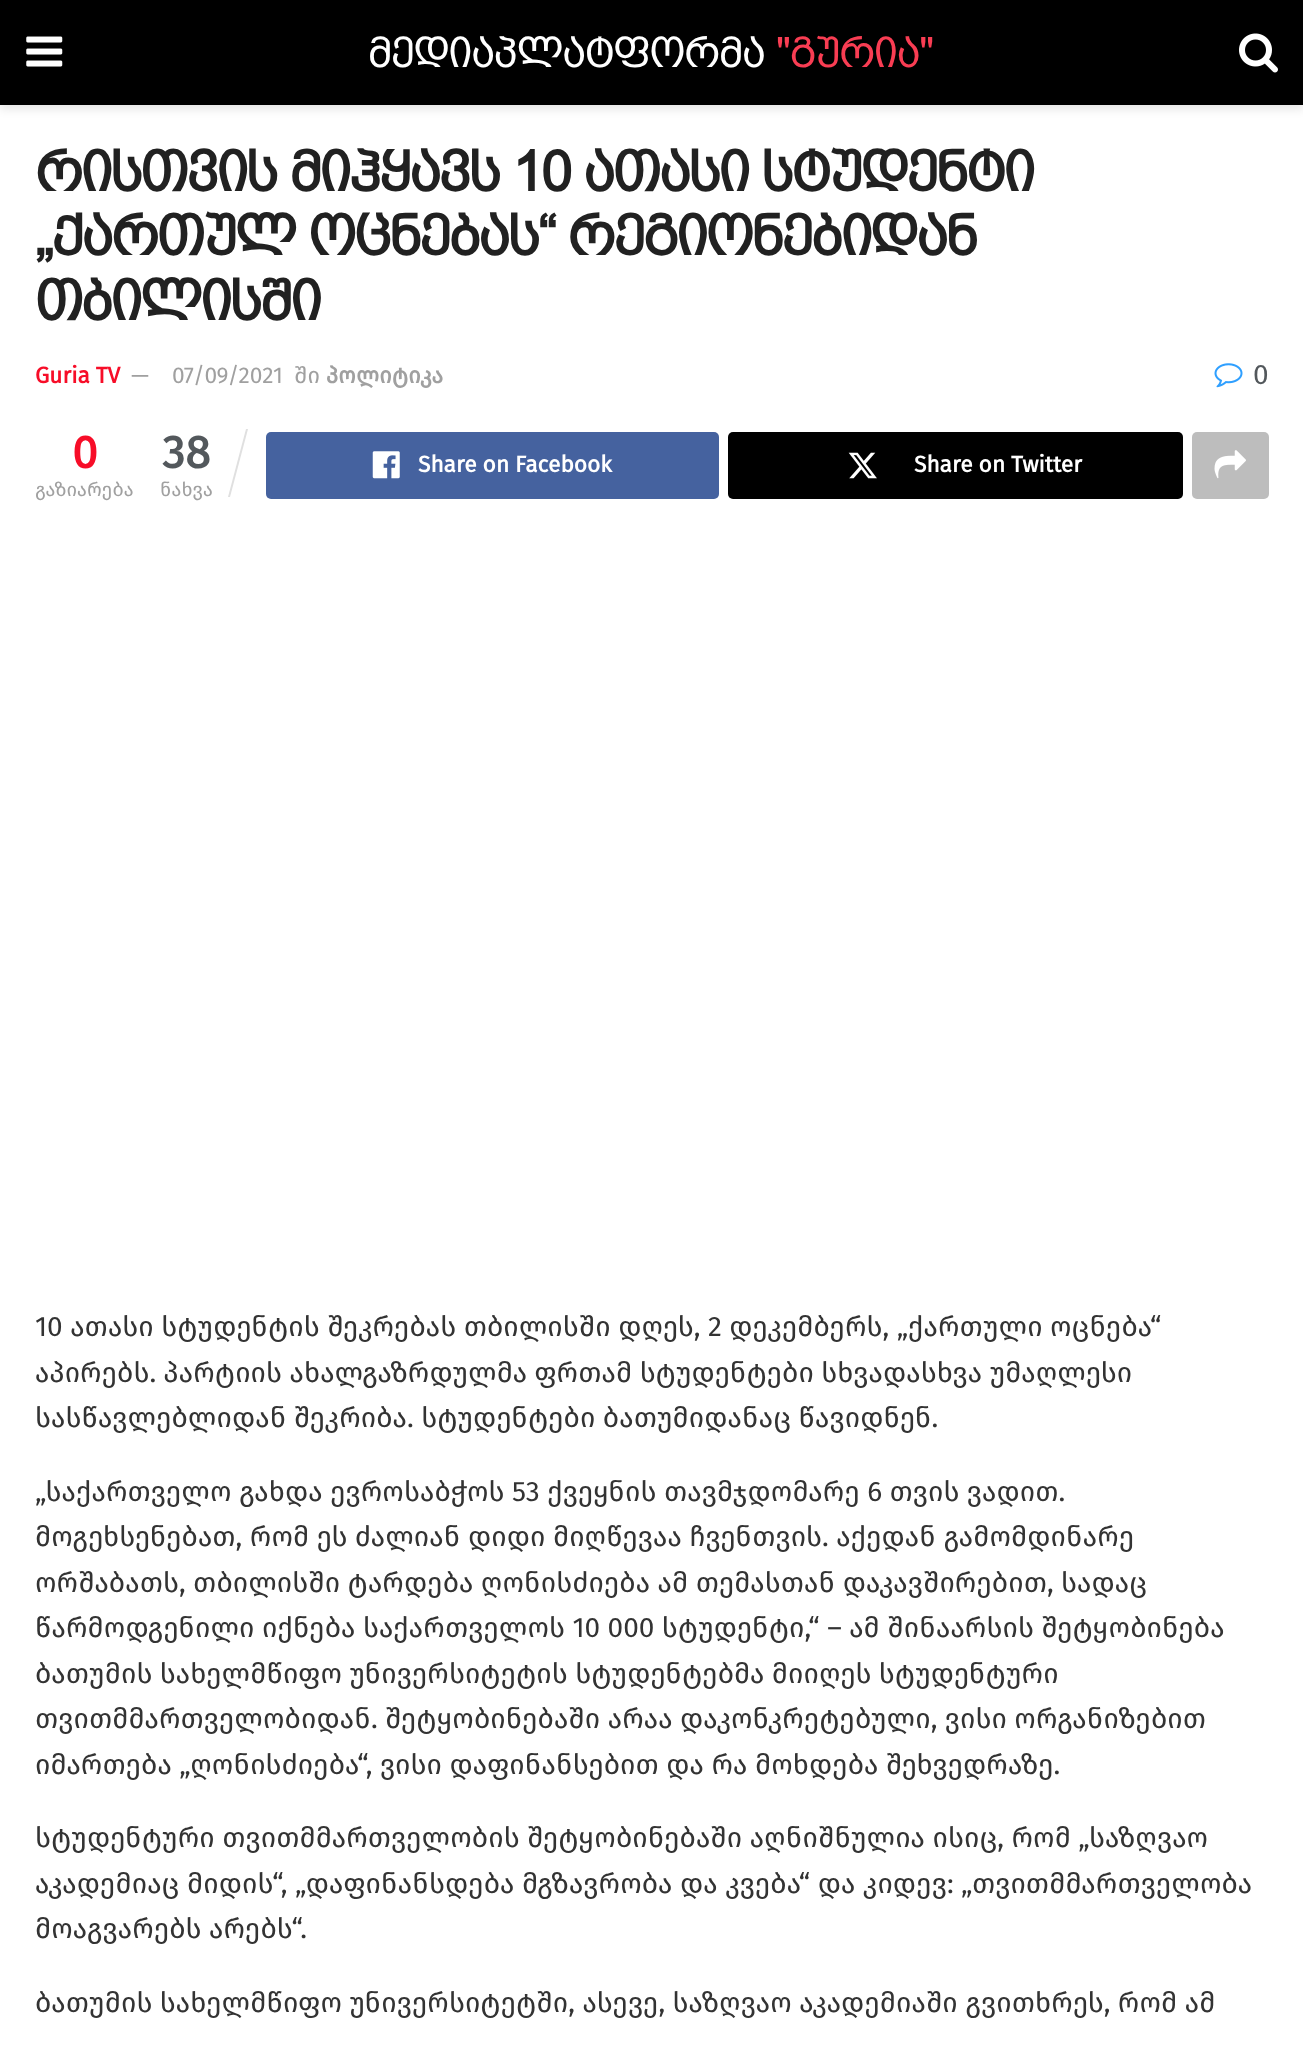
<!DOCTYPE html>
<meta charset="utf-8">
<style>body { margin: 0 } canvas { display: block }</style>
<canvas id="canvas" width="1303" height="2046"></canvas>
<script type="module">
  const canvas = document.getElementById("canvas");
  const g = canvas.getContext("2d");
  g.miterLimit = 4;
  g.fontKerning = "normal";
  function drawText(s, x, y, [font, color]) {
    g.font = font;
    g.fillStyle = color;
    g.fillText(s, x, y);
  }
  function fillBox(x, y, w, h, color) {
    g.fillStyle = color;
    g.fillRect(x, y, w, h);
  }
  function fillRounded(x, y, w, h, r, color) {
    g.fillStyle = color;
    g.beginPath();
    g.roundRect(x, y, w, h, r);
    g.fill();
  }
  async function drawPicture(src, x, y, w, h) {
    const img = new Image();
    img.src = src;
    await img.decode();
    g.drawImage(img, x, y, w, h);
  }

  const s1 = ["42px 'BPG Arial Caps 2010'", "#FFFFFF"];
  const s2 = ["42px 'BPG Arial Caps 2010'", "#F93D53"];
  const s3 = ["bold 56px 'BPG Arial Caps 2010'", "#212121"];
  const s4 = ["bold 22.75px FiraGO", "#F70D28"];
  const s5 = ["22.75px FiraGO", "#A0A0A0"];
  const s6 = ["bold 22.75px FiraGO", "#A0A0A0"];
  const s7 = ["28px FiraGO", "#53585C"];
  const s8 = ["bold 46px FiraGO", "#F70D28"];
  const s9 = ["19.25px FiraGO", "#A0A0A0"];
  const s10 = ["bold 46px FiraGO", "#53585C"];
  const s11 = ["bold 22.75px FiraGO", "#FFFFFF"];
  const s12 = ["28px FiraGO", "#333333"];

  fillBox(0, 0, 1303, 2046, "#FFFFFF");
  g.fillStyle = "rgba(0, 0, 0, 0.1)";
  g.filter = "blur(5px)";
  g.beginPath();
  g.rect(0, 4, 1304, 105);
  g.fill();
  g.filter = "none";
  fillBox(0, 0, 1303, 105, "#000000");
  await drawPicture("pic1.png", 26, 36, 37, 31);
  g.letterSpacing = "-1.25px";
  drawText("მედიაპლატფორმა", 368, 67, s1);
  drawText("\"გურია\"", 776, 67, s2);
  await drawPicture("pic2.png", 1239, 33, 39, 40);
  g.letterSpacing = "-2.25px";
  drawText("რისთვის მიჰყავს 10 ათასი სტუდენტი", 35, 191, s3);
  drawText("„ქართულ ოცნებას“ რეგიონებიდან", 35, 255, s3);
  drawText("თბილისში", 35, 320, s3);
  g.letterSpacing = "0px";
  drawText("Guria TV", 35, 383, s4);
  drawText("—", 131, 383, s5);
  drawText("07/09/2021", 172, 383, s5);
  drawText("ში", 294, 383, s5);
  drawText("პოლიტიკა", 326, 383, s6);
  await drawPicture("pic3.png", 1214, 363, 29, 25);
  drawText("0", 1253, 384, s7);
  drawText("0", 72, 468, s8);
  drawText("გაზიარება", 35, 496, s9);
  drawText("38", 162, 468, s10);
  g.fillStyle = "#E0E0E0";
  g.beginPath();
  g.moveTo(246, 429);
  g.lineTo(248, 429);
  g.lineTo(230, 497);
  g.lineTo(228, 497);
  g.closePath();
  g.fill();
  drawText("ნახვა", 160, 496, s9);
  fillRounded(266, 432, 453, 67, 5, "#45629F");
  await drawPicture("pic4.png", 372, 451, 28, 28);
  drawText("Share on Facebook", 418, 472, s11);
  fillRounded(728, 432, 455, 67, 5, "#000000");
  await drawPicture("pic5.png", 848, 452, 29, 27);
  drawText("Share on Twitter", 914, 472, s11);
  fillRounded(1192, 432, 77, 67, 5, "#BDBDBD");
  await drawPicture("pic6.png", 1214, 450, 32, 29);
  drawText("10 ათასი სტუდენტის შეკრებას თბილისში დღეს, 2 დეკემბერს, „ქართული ოცნება“", 35, 1336, s12);
  drawText("აპირებს. პარტიის ახალგაზრდულმა ფრთამ სტუდენტები სხვადასხვა უმაღლესი", 35, 1382, s12);
  drawText("სასწავლებლიდან შეკრიბა. სტუდენტები ბათუმიდანაც წავიდნენ.", 35, 1427, s12);
  drawText("„საქართველო გახდა ევროსაბჭოს 53 ქვეყნის თავმჯდომარე 6 თვის ვადით.", 35, 1501, s12);
  drawText("მოგეხსენებათ, რომ ეს ძალიან დიდი მიღწევაა ჩვენთვის. აქედან გამომდინარე", 35, 1546, s12);
  drawText("ორშაბათს, თბილისში ტარდება ღონისძიება ამ თემასთან დაკავშირებით, სადაც", 35, 1592, s12);
  drawText("წარმოდგენილი იქნება საქართველოს 10 000 სტუდენტი,“ – ამ შინაარსის შეტყობინება", 35, 1637, s12);
  drawText("ბათუმის სახელმწიფო უნივერსიტეტის სტუდენტებმა მიიღეს სტუდენტური", 35, 1683, s12);
  drawText("თვითმმართველობიდან. შეტყობინებაში არაა დაკონკრეტებული, ვისი ორგანიზებით", 35, 1728, s12);
  drawText("იმართება „ღონისძიება“, ვისი დაფინანსებით და რა მოხდება შეხვედრაზე.", 35, 1774, s12);
  drawText("სტუდენტური თვითმმართველობის შეტყობინებაში აღნიშნულია ისიც, რომ „საზღვაო", 35, 1847, s12);
  drawText("აკადემიაც მიდის“, „დაფინანსდება მგზავრობა და კვება“ და კიდევ: „თვითმმართველობა", 35, 1893, s12);
  drawText("მოაგვარებს არებს“.", 35, 1938, s12);
  drawText("ბათუმის სახელმწიფო უნივერსიტეტში, ასევე, საზღვაო აკადემიაში გვითხრეს, რომ ამ", 35, 2012, s12);
</script>
